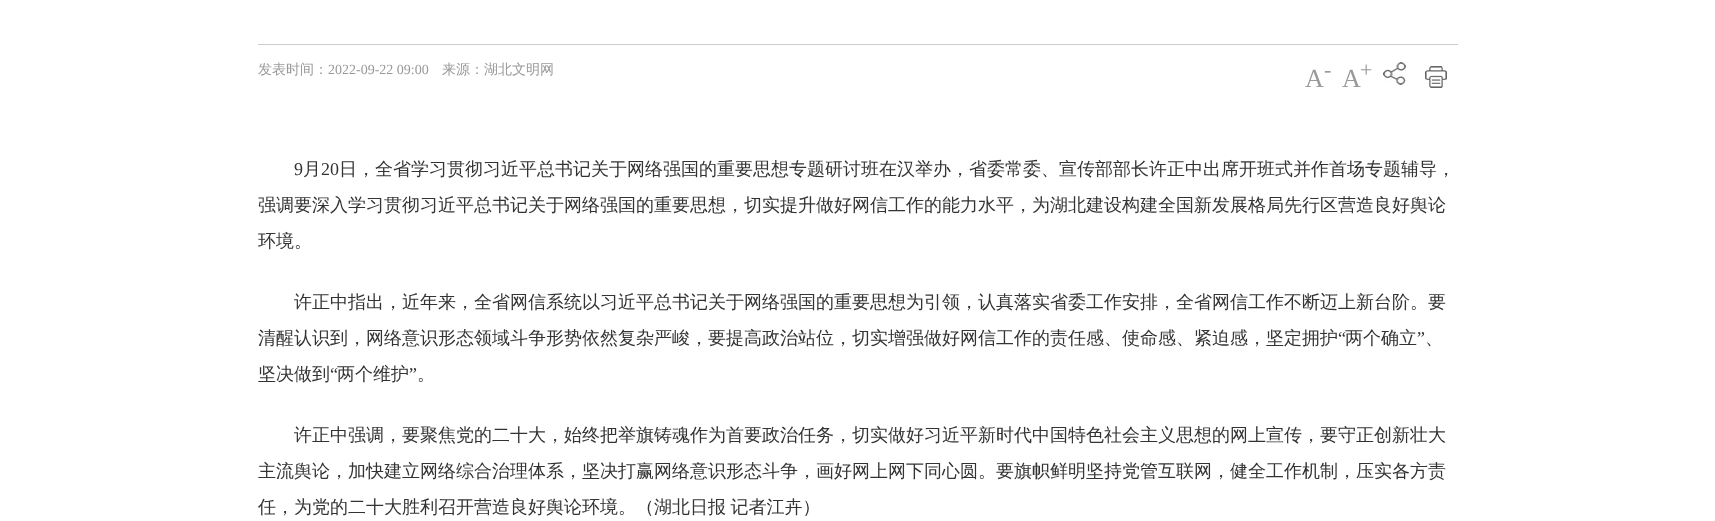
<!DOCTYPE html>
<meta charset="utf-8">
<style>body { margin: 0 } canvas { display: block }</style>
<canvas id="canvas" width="1715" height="521"></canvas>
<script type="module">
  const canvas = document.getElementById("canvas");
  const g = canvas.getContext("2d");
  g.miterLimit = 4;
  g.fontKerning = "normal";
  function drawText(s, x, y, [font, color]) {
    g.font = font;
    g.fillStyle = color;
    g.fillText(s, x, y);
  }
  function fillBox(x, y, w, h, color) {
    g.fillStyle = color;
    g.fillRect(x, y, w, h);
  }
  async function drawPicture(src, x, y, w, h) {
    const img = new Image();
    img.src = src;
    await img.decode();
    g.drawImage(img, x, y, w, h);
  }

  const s1 = ["500 14px WenQuanYi Zen Hei", "#999999"];
  const s2 = ["14px Liberation Serif", "#999999"];
  const s3 = ["26px Liberation Serif", "#999999"];
  const s4 = ["22px Liberation Serif", "#999999"];
  const s5 = ["18px Liberation Serif", "#333333"];
  const s6 = ["500 18px WenQuanYi Zen Hei", "#333333"];

  fillBox(0, 0, 1715, 521, "#FFFFFF");
  fillBox(258, 44, 1200, 1, "#CCCCCC");
  drawText("发表时间：", 258, 74, s1);
  drawText("2022-09-22 09:00", 328, 74, s2);
  drawText("来源：湖北文明网", 442, 74, s1);
  drawText("A", 1305, 87, s3);
  drawText("-", 1324, 77, s4);
  drawText("A", 1342, 87, s3);
  drawText("+", 1360, 77, s4);
  await drawPicture("pic1.png", 1383, 62, 25, 23);
  await drawPicture("pic2.png", 1424, 65, 23, 23);
  drawText("9", 294, 175, s5);
  drawText("月", 303, 175, s6);
  drawText("20", 321, 175, s5);
  drawText("日，全省学习贯彻习近平总书记关于网络强国的重要思想专题研讨班在汉举办，省委常委、宣传部部长许正中出席开班式并作首场专题辅导，", 339, 175, s6);
  drawText("强调要深入学习贯彻习近平总书记关于网络强国的重要思想，切实提升做好网信工作的能力水平，为湖北建设构建全国新发展格局先行区营造良好舆论", 258, 211, s6);
  g.save();
  g.beginPath();
  g.rect(258, 98, 1200, 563);
  g.clip();
  drawText("环境。", 258, 247, s6);
  g.restore();
  drawText("许正中指出，近年来，全省网信系统以习近平总书记关于网络强国的重要思想为引领，认真落实省委工作安排，全省网信工作不断迈上新台阶。要", 294, 308, s6);
  drawText("清醒认识到，网络意识形态领域斗争形势依然复杂严峻，要提高政治站位，切实增强做好网信工作的责任感、使命感、紧迫感，坚定拥护", 258, 344, s6);
  drawText("“", 1338, 344, s5);
  drawText("两个确立", 1345, 344, s6);
  drawText("”", 1417, 344, s5);
  drawText("、", 1425, 344, s6);
  drawText("坚决做到", 258, 380, s6);
  drawText("“", 330, 380, s5);
  drawText("两个维护", 337, 380, s6);
  drawText("”", 409, 380, s5);
  drawText("。", 417, 380, s6);
  drawText("许正中强调，要聚焦党的二十大，始终把举旗铸魂作为首要政治任务，切实做好习近平新时代中国特色社会主义思想的网上宣传，要守正创新壮大", 294, 441, s6);
  drawText("主流舆论，加快建立网络综合治理体系，坚决打赢网络意识形态斗争，画好网上网下同心圆。要旗帜鲜明坚持党管互联网，健全工作机制，压实各方责", 258, 477, s6);
  g.wordSpacing = "-1px";
  drawText("任，为党的二十大胜利召开营造良好舆论环境。（湖北日报 记者江卉）", 258, 513, s6);
</script>
